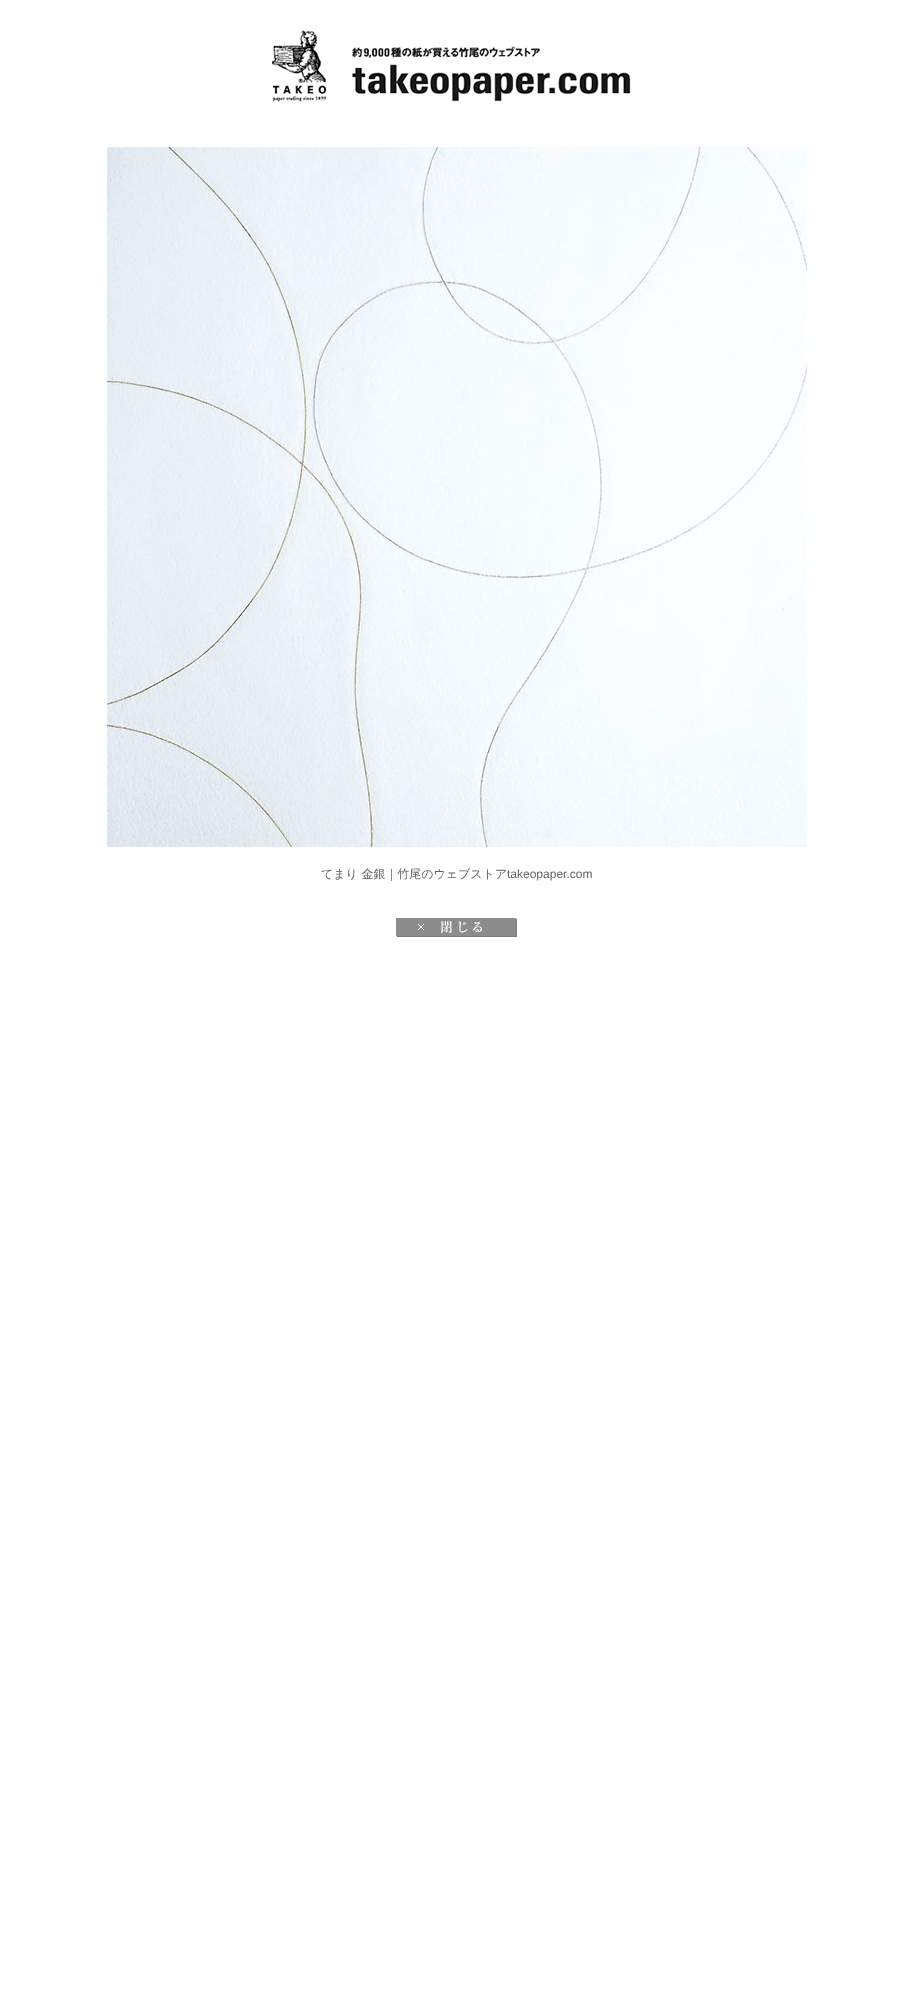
<!DOCTYPE html>
<meta charset="utf-8">
<style>body { margin: 0 } canvas { display: block }</style>
<canvas id="canvas" width="913" height="1999"></canvas>
<script type="module">
  const canvas = document.getElementById("canvas");
  const g = canvas.getContext("2d");
  g.miterLimit = 4;
  g.fontKerning = "normal";
  function drawText(s, x, y, [font, color]) {
    g.font = font;
    g.fillStyle = color;
    g.fillText(s, x, y);
  }
  function fillBox(x, y, w, h, color) {
    g.fillStyle = color;
    g.fillRect(x, y, w, h);
  }
  async function drawPicture(src, x, y, w, h) {
    const img = new Image();
    img.src = src;
    await img.decode();
    g.drawImage(img, x, y, w, h);
  }

  const s1 = ["500 12px WenQuanYi Zen Hei", "#616161"];
  const s2 = ["12px Liberation Sans", "#616161"];

  fillBox(0, 0, 913, 1999, "#FFFFFF");
  await drawPicture("pic1.png", 272, 30, 359, 72);
  await drawPicture("pic2.png", 107, 147, 700, 700);
  drawText("てまり 金銀｜竹尾のウェブストア", 321, 878, s1);
  drawText("takeopaper.com", 507, 878, s2);
  await drawPicture("pic3.png", 396, 918, 121, 19);
</script>
